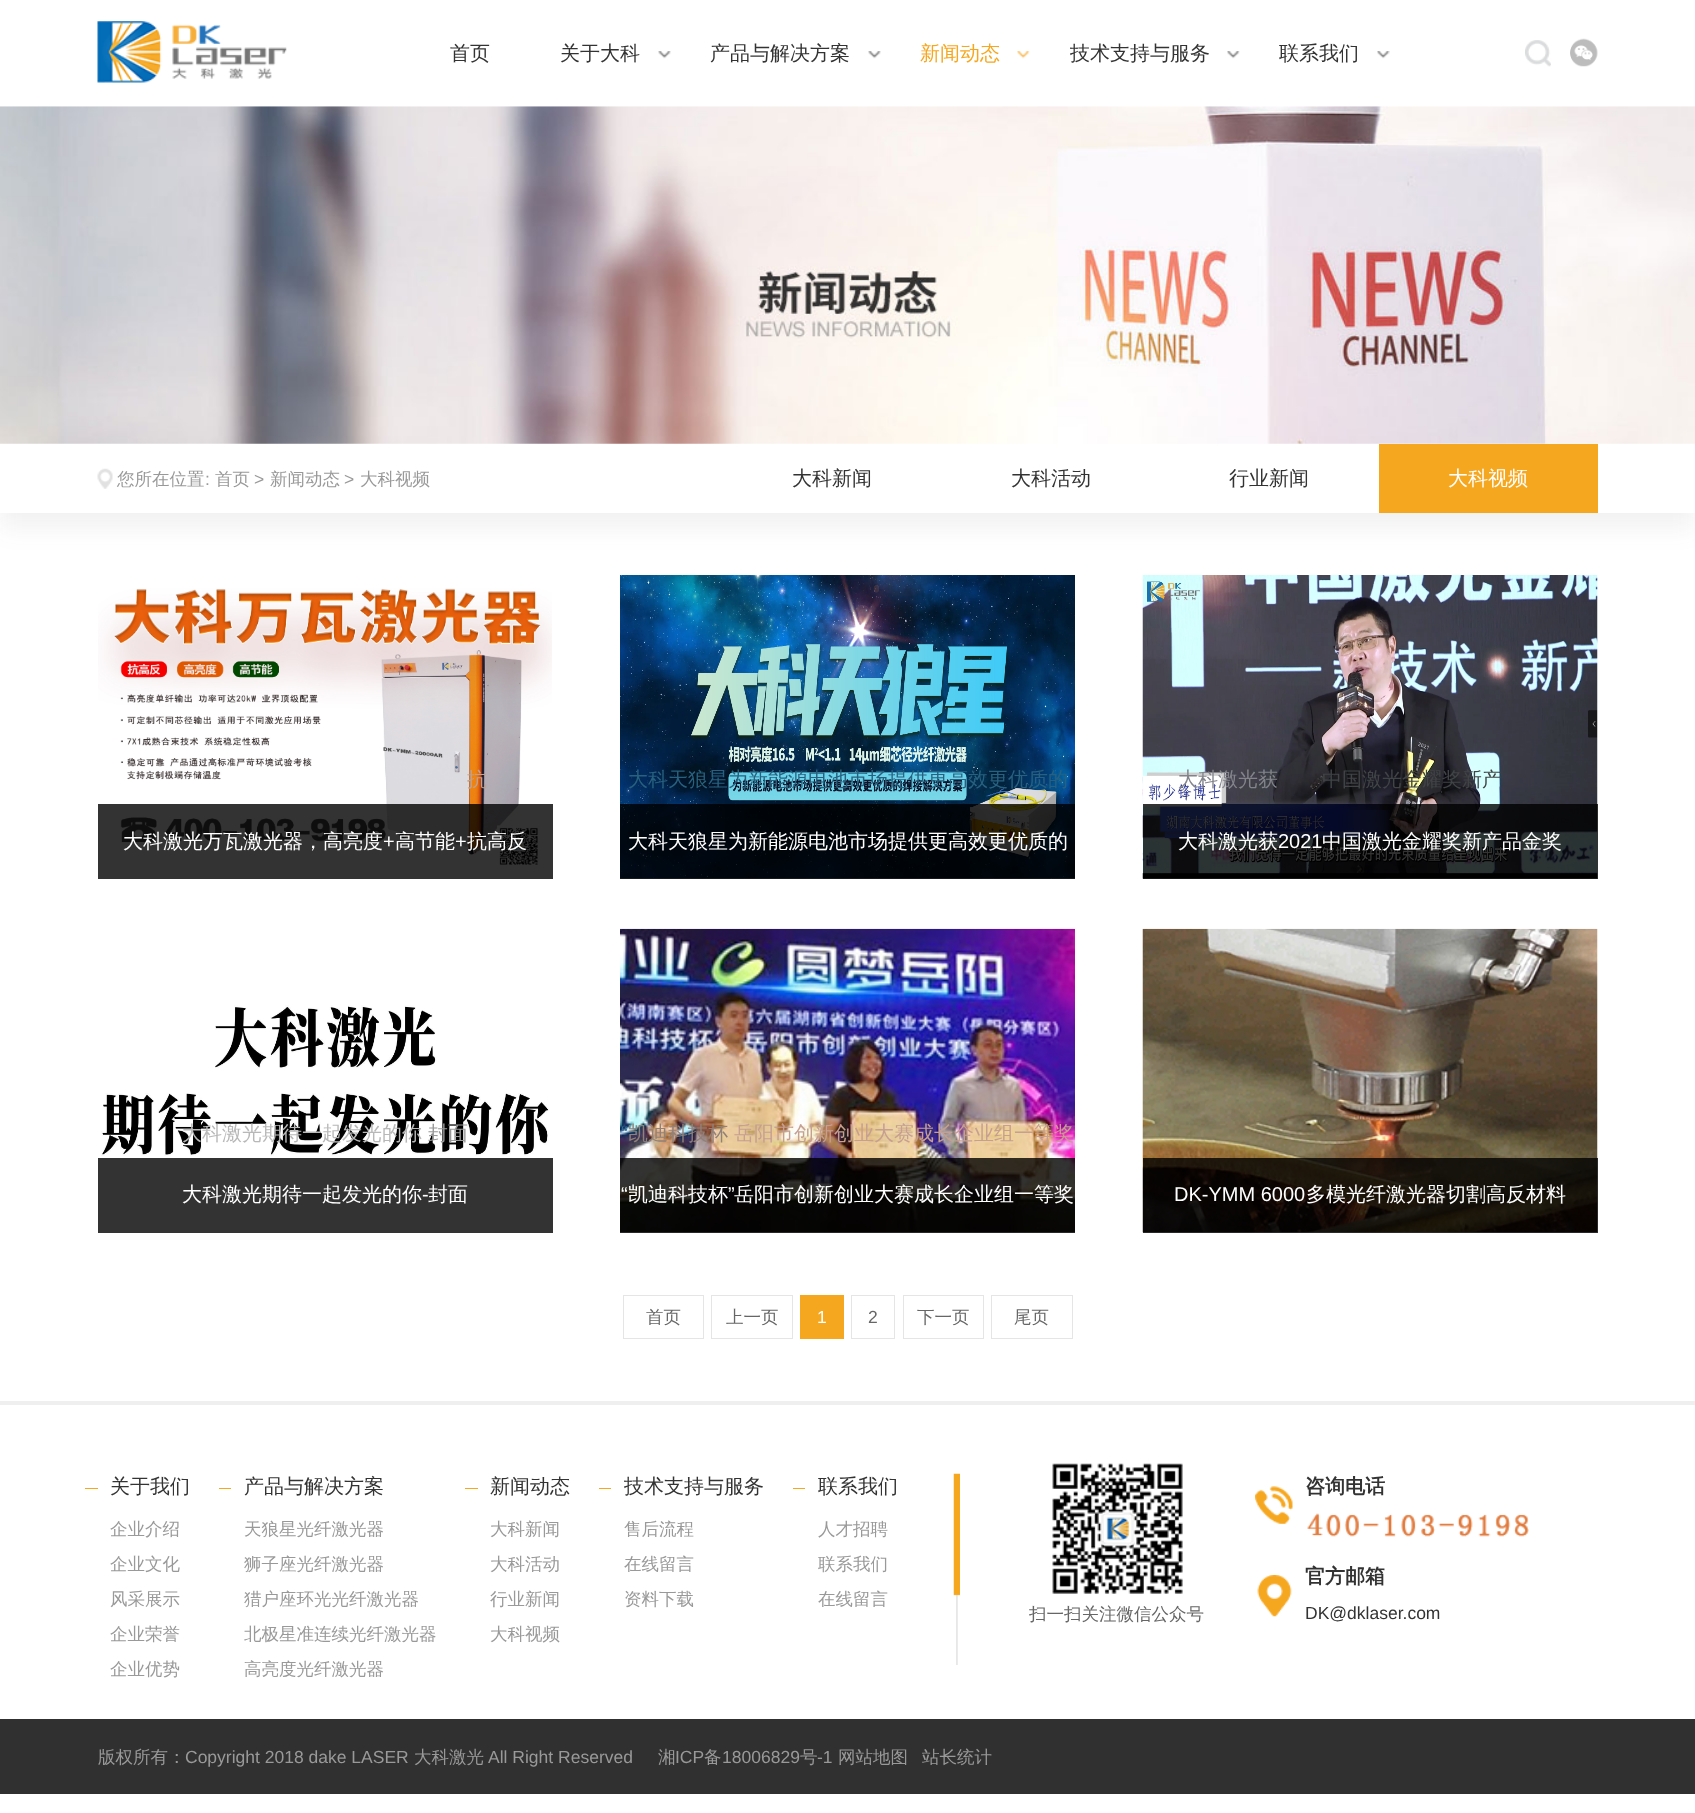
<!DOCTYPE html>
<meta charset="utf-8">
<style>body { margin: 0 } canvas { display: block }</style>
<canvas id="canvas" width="1695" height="1813"></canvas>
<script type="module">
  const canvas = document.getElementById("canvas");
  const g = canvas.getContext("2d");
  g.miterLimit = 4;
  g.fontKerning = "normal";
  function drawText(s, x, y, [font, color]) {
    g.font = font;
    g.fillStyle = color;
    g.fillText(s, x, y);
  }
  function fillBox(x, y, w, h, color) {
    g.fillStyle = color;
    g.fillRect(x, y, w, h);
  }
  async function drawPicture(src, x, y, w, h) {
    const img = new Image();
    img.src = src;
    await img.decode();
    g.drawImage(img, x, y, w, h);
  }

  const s1 = ["500 20px WenQuanYi Zen Hei", "#333333"];
  const s2 = ["500 20px WenQuanYi Zen Hei", "#F6A720"];
  const s3 = ["500 17.5px WenQuanYi Zen Hei", "#999999"];
  const s4 = ["17.5px Liberation Sans", "#999999"];
  const s5 = ["500 20px WenQuanYi Zen Hei", "#FFFFFF"];
  const s6 = ["500 20px WenQuanYi Zen Hei", "#C0A190"];
  const s7 = ["20px Liberation Sans", "#FFFFFF"];
  const s8 = ["500 20px WenQuanYi Zen Hei", "#28617F"];
  const s9 = ["500 20px WenQuanYi Zen Hei", "#83848B"];
  const s10 = ["500 20px WenQuanYi Zen Hei", "#414446"];
  const s11 = ["500 20px WenQuanYi Zen Hei", "#B8B8B8"];
  const s12 = ["500 20px WenQuanYi Zen Hei", "#999999"];
  const s13 = ["20px Liberation Sans", "#3F6A91"];
  const s14 = ["500 20px WenQuanYi Zen Hei", "#928179"];
  const s15 = ["500 20px WenQuanYi Zen Hei", "#C69F91"];
  const s16 = ["500 17.5px WenQuanYi Zen Hei", "#666666"];
  const s17 = ["17.5px Liberation Sans", "#FFFFFF"];
  const s18 = ["17.5px Liberation Sans", "#666666"];
  const s19 = ["bold 20px WenQuanYi Zen Hei", "#333333"];
  const s20 = ["17.5px Liberation Sans", "#333333"];

  fillBox(0, 0, 1695, 1813, "#FFFFFF");
  await drawPicture("pic1.png", 97, 21, 190, 62);
  drawText("首页", 450, 60, s1);
  drawText("关于大科", 560, 60, s1);
  await drawPicture("pic2.png", 658, 51, 13, 8);
  drawText("产品与解决方案", 710, 60, s1);
  await drawPicture("pic2.png", 868, 51, 13, 8);
  drawText("新闻动态", 920, 60, s2);
  await drawPicture("pic3.png", 1017, 51, 13, 8);
  drawText("技术支持与服务", 1070, 60, s1);
  await drawPicture("pic4.png", 1227, 51, 13, 8);
  drawText("联系我们", 1279, 60, s1);
  await drawPicture("pic5.png", 1377, 51, 13, 8);
  await drawPicture("pic6.png", 1525, 40, 26, 27);
  await drawPicture("pic7.png", 1570, 38, 28, 29);
  g.save();
  g.beginPath();
  g.moveTo(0, 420);
  g.lineTo(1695, 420);
  g.lineTo(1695, 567);
  g.lineTo(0, 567);
  g.closePath();
  g.moveTo(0, 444);
  g.lineTo(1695, 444);
  g.lineTo(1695, 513);
  g.lineTo(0, 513);
  g.closePath();
  g.clip("evenodd");
  g.fillStyle = "rgba(79, 78, 78, 0.08)";
  g.filter = "blur(12.5px)";
  g.beginPath();
  g.rect(0, 459, 1695, 69);
  g.fill();
  g.filter = "none";
  g.restore();
  await drawPicture("pic8.png", 0, 106, 1695, 338);
  await drawPicture("pic9.png", 97, 468, 16, 21);
  drawText("您所在位置", 117, 485, s3);
  drawText(":", 205, 485, s4);
  drawText("首页", 215, 485, s3);
  drawText(">", 254, 485, s4);
  drawText("新闻动态", 270, 485, s3);
  drawText(">", 344, 485, s4);
  drawText("大科视频", 360, 485, s3);
  drawText("大科新闻", 792, 485, s1);
  drawText("大科活动", 1011, 485, s1);
  drawText("行业新闻", 1229, 485, s1);
  fillBox(1379, 444, 219, 69, "#F6A720");
  drawText("大科视频", 1448, 485, s5);
  await drawPicture("pic10.png", 98, 588, 454, 277);
  drawText("抗", 467, 786, s6);
  fillBox(98, 804, 455, 75, "rgba(0, 0, 0, 0.8)");
  drawText("大科激光万瓦激光器，高亮度", 123, 848, s5);
  drawText("+", 383, 848, s7);
  drawText("高节能", 395, 848, s5);
  drawText("+", 455, 848, s7);
  drawText("抗高反", 467, 848, s5);
  await drawPicture("pic11.png", 620, 575, 455, 304);
  drawText("大科天狼星为新能源电池市场提供更高效更优质的", 628, 786, s8);
  fillBox(620, 804, 455, 75, "rgba(0, 0, 0, 0.8)");
  drawText("大科天狼星为新能源电池市场提供更高效更优质的", 628, 848, s5);
  await drawPicture("pic12.png", 1142, 575, 456, 304);
  drawText("大科激光获", 1178, 786, s9);
  drawText("中国激光金耀奖新产", 1322, 786, s10);
  fillBox(1143, 804, 455, 75, "rgba(0, 0, 0, 0.8)");
  drawText("大科激光获", 1178, 848, s5);
  drawText("2021", 1278, 848, s7);
  drawText("中国激光金耀奖新产品金奖", 1322, 848, s5);
  await drawPicture("pic13.png", 101, 1005, 448, 151);
  drawText("大科激光期待一起发光的你", 182, 1140, s11);
  drawText("封面", 428, 1140, s12);
  fillBox(98, 1158, 455, 75, "#333333");
  drawText("大科激光期待一起发光的你", 182, 1201, s5);
  drawText("-", 422, 1201, s7);
  drawText("封面", 428, 1201, s5);
  await drawPicture("pic14.png", 620, 928, 455, 305);
  drawText("“", 621, 1140, s13);
  drawText("凯迪科技杯", 628, 1140, s14);
  drawText("岳阳市创新创业大赛成长企业组一等奖", 734, 1140, s15);
  fillBox(620, 1158, 455, 75, "rgba(0, 0, 0, 0.8)");
  drawText("“", 621, 1201, s7);
  drawText("凯迪科技杯", 628, 1201, s5);
  drawText("”", 728, 1201, s7);
  drawText("岳阳市创新创业大赛成长企业组一等奖", 734, 1201, s5);
  await drawPicture("pic15.png", 1142, 928, 456, 305);
  fillBox(1143, 1158, 455, 75, "rgba(0, 0, 0, 0.8)");
  drawText("DK-YMM 6000", 1174, 1201, s7);
  drawText("多模光纤激光器切割高反材料", 1306, 1201, s5);
  g.strokeStyle = "#E5E5E5";
  g.strokeRect(623.5, 1295.5, 80, 43);
  drawText("首页", 646, 1323, s16);
  g.strokeRect(711.5, 1295.5, 81, 43);
  drawText("上一页", 726, 1323, s16);
  fillBox(800, 1295, 44, 44, "#F6A720");
  drawText("1", 817, 1323, s17);
  g.strokeRect(851.5, 1295.5, 43, 43);
  drawText("2", 868, 1323, s18);
  g.strokeRect(903.5, 1295.5, 80, 43);
  drawText("下一页", 917, 1323, s16);
  g.strokeRect(991.5, 1295.5, 81, 43);
  drawText("尾页", 1014, 1323, s16);
  fillBox(0, 1401, 1695, 4, "#F0EFEF");
  await drawPicture("pic16.png", 953, 1473, 7, 192);
  fillBox(85, 1488, 13, 1, "#F6A720");
  drawText("关于我们", 110, 1493, s1);
  drawText("企业介绍", 110, 1535, s3);
  drawText("企业文化", 110, 1570, s3);
  drawText("风采展示", 110, 1605, s3);
  drawText("企业荣誉", 110, 1640, s3);
  drawText("企业优势", 110, 1675, s3);
  fillBox(219, 1488, 12, 1, "#F6A720");
  drawText("产品与解决方案", 244, 1493, s1);
  drawText("天狼星光纤激光器", 244, 1535, s3);
  drawText("狮子座光纤激光器", 244, 1570, s3);
  drawText("猎户座环光光纤激光器", 244, 1605, s3);
  drawText("北极星准连续光纤激光器", 244, 1640, s3);
  drawText("高亮度光纤激光器", 244, 1675, s3);
  fillBox(465, 1488, 13, 1, "#F6A720");
  drawText("新闻动态", 490, 1493, s1);
  drawText("大科新闻", 490, 1535, s3);
  drawText("大科活动", 490, 1570, s3);
  drawText("行业新闻", 490, 1605, s3);
  drawText("大科视频", 490, 1640, s3);
  fillBox(599, 1488, 12, 1, "#F6A720");
  drawText("技术支持与服务", 624, 1493, s1);
  drawText("售后流程", 624, 1535, s3);
  drawText("在线留言", 624, 1570, s3);
  drawText("资料下载", 624, 1605, s3);
  fillBox(793, 1488, 12, 1, "#F6A720");
  drawText("联系我们", 818, 1493, s1);
  drawText("人才招聘", 818, 1535, s3);
  drawText("联系我们", 818, 1570, s3);
  drawText("在线留言", 818, 1605, s3);
  await drawPicture("pic17.png", 1052, 1463, 131, 131);
  drawText("扫一扫关注微信公众号", 1029, 1620, s16);
  await drawPicture("pic18.png", 1255, 1486, 38, 38);
  drawText("咨询电话", 1305, 1493, s19);
  await drawPicture("pic19.png", 1307, 1513, 222, 24);
  await drawPicture("pic20.png", 1257, 1575, 35, 42);
  drawText("官方邮箱", 1305, 1583, s19);
  drawText("DK@dklaser.com", 1305, 1619, s20);
  fillBox(0, 1719, 1695, 75, "#303030");
  drawText("版权所有：", 98, 1763, s3);
  drawText("Copyright 2018 dake LASER", 185, 1763, s4);
  drawText("大科激光", 414, 1763, s3);
  drawText("All Right Reserved", 488, 1763, s4);
  drawText("湘", 658, 1763, s3);
  drawText("ICP", 675, 1763, s4);
  drawText("备", 704, 1763, s3);
  drawText("18006829", 722, 1763, s4);
  drawText("号", 800, 1763, s3);
  drawText("-1", 817, 1763, s4);
  drawText("网站地图", 838, 1763, s3);
  drawText("站长统计", 922, 1763, s3);
</script>
